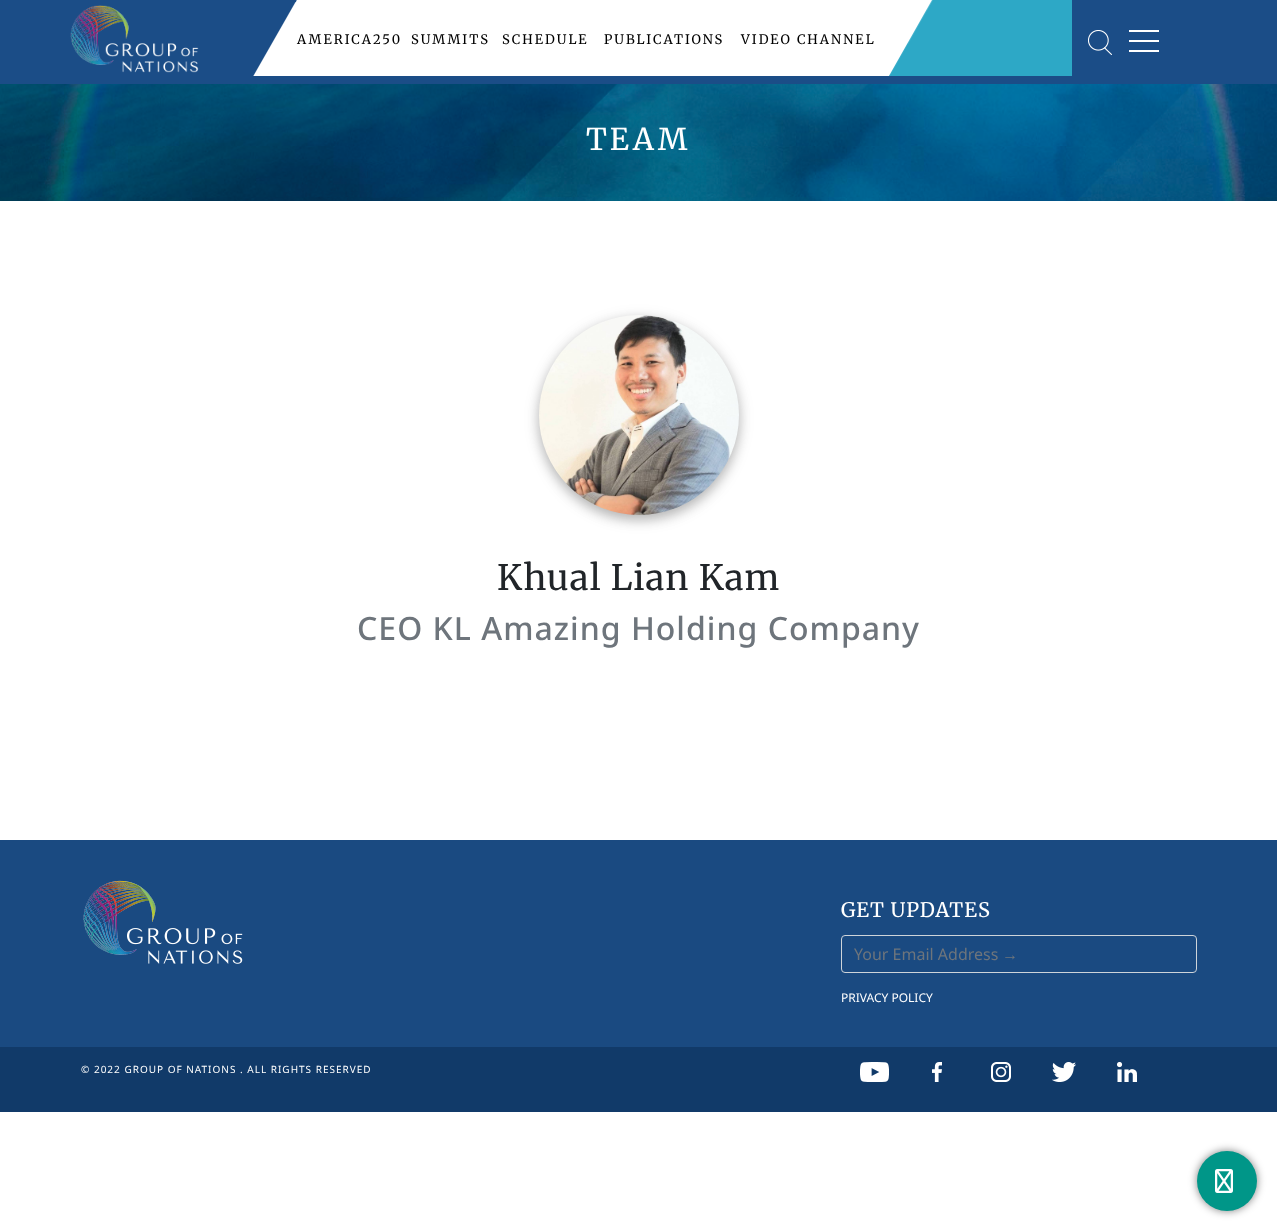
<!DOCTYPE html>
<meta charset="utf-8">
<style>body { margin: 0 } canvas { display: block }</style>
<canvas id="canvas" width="1277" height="1231"></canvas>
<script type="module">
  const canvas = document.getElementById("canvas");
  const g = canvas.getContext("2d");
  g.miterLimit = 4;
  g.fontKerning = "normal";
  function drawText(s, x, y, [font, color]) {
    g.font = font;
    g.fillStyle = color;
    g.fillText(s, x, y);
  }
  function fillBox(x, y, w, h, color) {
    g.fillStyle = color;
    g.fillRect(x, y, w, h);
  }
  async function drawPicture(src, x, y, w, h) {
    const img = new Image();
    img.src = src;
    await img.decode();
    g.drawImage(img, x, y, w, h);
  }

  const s1 = ["13px Merriweather", "#000000"];
  const s2 = ["30px Merriweather", "#FFFFFF"];
  const s3 = ["35px Merriweather", "#212529"];
  const s4 = ["500 32px Noto Sans", "#6E757C"];
  const s5 = ["20px Merriweather", "#FFFFFF"];
  const s6 = ["16px Noto Sans", "#6E757C"];
  const s7 = ["16px Liberation Sans", "#6E757C"];
  const s8 = ["12px Noto Sans", "#FFFFFF"];
  const s9 = ["10px Noto Sans", "#FFFFFF"];

  fillBox(0, 0, 1277, 1231, "#FFFFFF");
  fillBox(0, 0, 1277, 84, "#1B4D87");
  fillBox(253, 0, 680, 76, "#FFFFFF");
  await drawPicture("pic1.png", 69, 0, 228, 76);
  await drawPicture("pic2.png", 70, 5, 129, 68);
  await drawPicture("pic3.png", 889, 0, 183, 76);
  await drawPicture("pic4.png", 1088, 30, 24, 25);
  fillBox(1129, 30, 30, 2, "#FFFFFF");
  fillBox(1129, 40, 30, 2, "#FFFFFF");
  fillBox(1129, 50, 30, 2, "#FFFFFF");
  g.letterSpacing = "2px";
  drawText("AMERICA250", 297, 44, s1);
  drawText("SUMMITS", 411, 44, s1);
  drawText("SCHEDULE", 502, 44, s1);
  drawText("PUBLICATIONS", 604, 44, s1);
  drawText("VIDEO CHANNEL", 741, 44, s1);
  await drawPicture("pic5.png", 0, 84, 1277, 117);
  g.letterSpacing = "3px";
  drawText("TEAM", 586, 150, s2);
  g.fillStyle = "rgba(0, 0, 0, 0.15)";
  g.filter = "blur(7.5px)";
  g.beginPath();
  g.roundRect(539, 319, 200, 200, 100);
  g.fill();
  g.filter = "none";
  g.fillStyle = "rgba(0, 0, 0, 0.18)";
  g.filter = "blur(5.5px)";
  g.beginPath();
  g.roundRect(539, 320, 200, 200, 100);
  g.fill();
  g.filter = "none";
  await drawPicture("pic6.png", 539, 315, 200, 200);
  g.letterSpacing = "1px";
  drawText("Khual Lian Kam", 497, 590, s3);
  drawText("CEO KL Amazing Holding Company", 357, 640, s4);
  fillBox(0, 840, 1277, 207, "#1A4A81");
  await drawPicture("pic7.png", 83, 880, 160, 84);
  drawText("GET UPDATES", 841, 917, s5);
  g.beginPath();
  g.roundRect(841.5, 935.5, 355, 37, 3.5);
  g.strokeStyle = "#CED4DA";
  g.stroke();
  g.letterSpacing = "0px";
  drawText("Your Email Address", 854, 960, s6);
  drawText("→", 1002, 960, s7);
  drawText("PRIVACY POLICY", 841, 1002, s8);
  fillBox(0, 1047, 1277, 65, "#113A69");
  g.letterSpacing = "1px";
  drawText("© 2022 GROUP OF NATIONS . ALL RIGHTS RESERVED", 81, 1073, s9);
  await drawPicture("pic8.png", 860, 1062, 29, 20);
  await drawPicture("pic9.png", 932, 1062, 10, 20);
  await drawPicture("pic10.png", 991, 1062, 20, 20);
  await drawPicture("pic11.png", 1052, 1062, 24, 20);
  await drawPicture("pic12.png", 1117, 1062, 20, 20);
  g.fillStyle = "rgba(0, 0, 0, 0.5)";
  g.filter = "blur(4px)";
  g.beginPath();
  g.roundRect(1197, 1151, 60, 60, 30);
  g.fill();
  g.filter = "none";
  g.fillStyle = "#009688";
  g.beginPath();
  g.arc(1227, 1181, 30, 0, Math.PI * 2);
  g.fill();
  await drawPicture("pic13.png", 1215, 1169, 18, 24);
</script>
